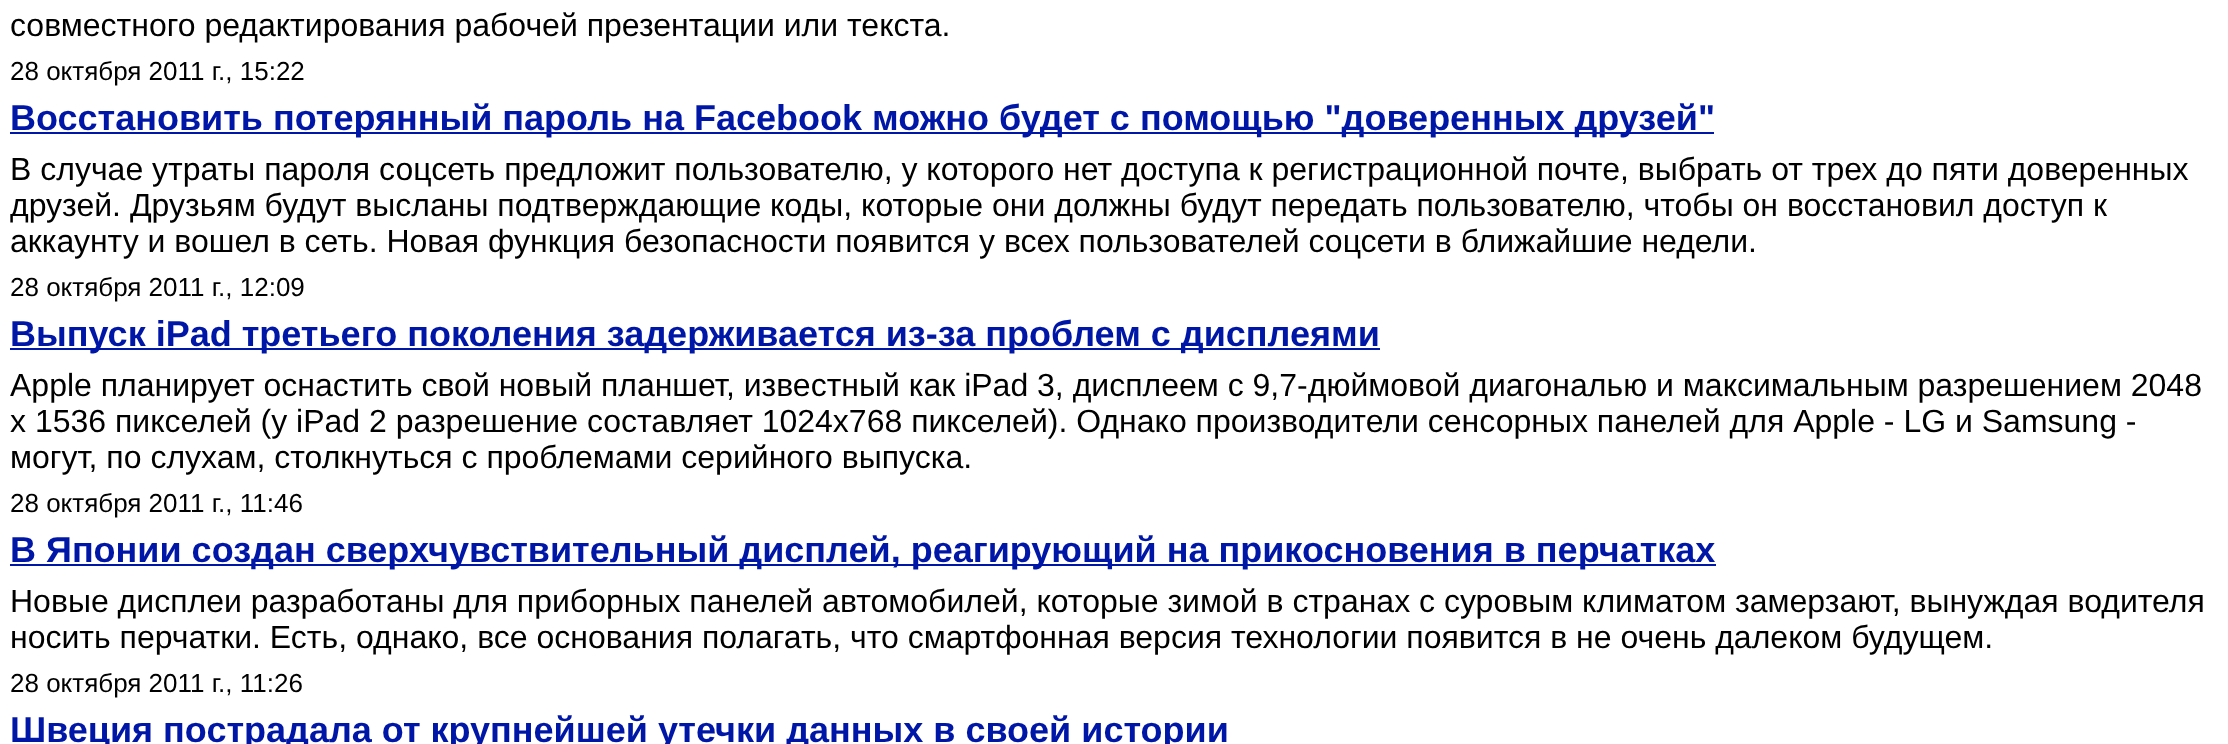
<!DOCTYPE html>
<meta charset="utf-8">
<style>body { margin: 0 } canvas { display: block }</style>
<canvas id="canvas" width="2228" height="744"></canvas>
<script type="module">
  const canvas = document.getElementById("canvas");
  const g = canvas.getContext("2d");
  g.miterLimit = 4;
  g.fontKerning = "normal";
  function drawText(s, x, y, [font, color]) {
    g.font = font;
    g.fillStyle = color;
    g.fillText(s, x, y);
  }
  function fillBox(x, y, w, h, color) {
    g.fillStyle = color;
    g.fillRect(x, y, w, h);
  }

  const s1 = ["32px Liberation Sans", "#000000"];
  const s2 = ["26px Liberation Sans", "#000000"];
  const s3 = ["bold 36px Liberation Sans", "#0016A6"];

  fillBox(0, 0, 2228, 744, "#FFFFFF");
  drawText("совместного редактирования рабочей презентации или текста.", 10, 36, s1);
  drawText("28 октября 2011 г., 15:22", 10, 80, s2);
  fillBox(10, 132, 1704, 2, "#0016A6");
  drawText("Восстановить потерянный пароль на Facebook можно будет с помощью \"доверенных друзей\"", 10, 130, s3);
  drawText("В случае утраты пароля соцсеть предложит пользователю, у которого нет доступа к регистрационной почте, выбрать от трех до пяти доверенных", 10, 180, s1);
  drawText("друзей. Друзьям будут высланы подтверждающие коды, которые они должны будут передать пользователю, чтобы он восстановил доступ к", 10, 216, s1);
  drawText("аккаунту и вошел в сеть. Новая функция безопасности появится у всех пользователей соцсети в ближайшие недели.", 10, 252, s1);
  drawText("28 октября 2011 г., 12:09", 10, 296, s2);
  fillBox(10, 348, 1370, 2, "#0016A6");
  drawText("Выпуск iPad третьего поколения задерживается из-за проблем с дисплеями", 10, 346, s3);
  drawText("Apple планирует оснастить свой новый планшет, известный как iPad 3, дисплеем с 9,7-дюймовой диагональю и максимальным разрешением 2048", 10, 396, s1);
  drawText("x 1536 пикселей (у iPad 2 разрешение составляет 1024x768 пикселей). Однако производители сенсорных панелей для Apple - LG и Samsung -", 10, 432, s1);
  drawText("могут, по слухам, столкнуться с проблемами серийного выпуска.", 10, 468, s1);
  drawText("28 октября 2011 г., 11:46", 10, 512, s2);
  fillBox(10, 564, 1706, 2, "#0016A6");
  drawText("В Японии создан сверхчувствительный дисплей, реагирующий на прикосновения в перчатках", 10, 562, s3);
  drawText("Новые дисплеи разработаны для приборных панелей автомобилей, которые зимой в странах с суровым климатом замерзают, вынуждая водителя", 10, 612, s1);
  drawText("носить перчатки. Есть, однако, все основания полагать, что смартфонная версия технологии появится в не очень далеком будущем.", 10, 648, s1);
  drawText("28 октября 2011 г., 11:26", 10, 692, s2);
  drawText("Швеция пострадала от крупнейшей утечки данных в своей истории", 10, 742, s3);
</script>
